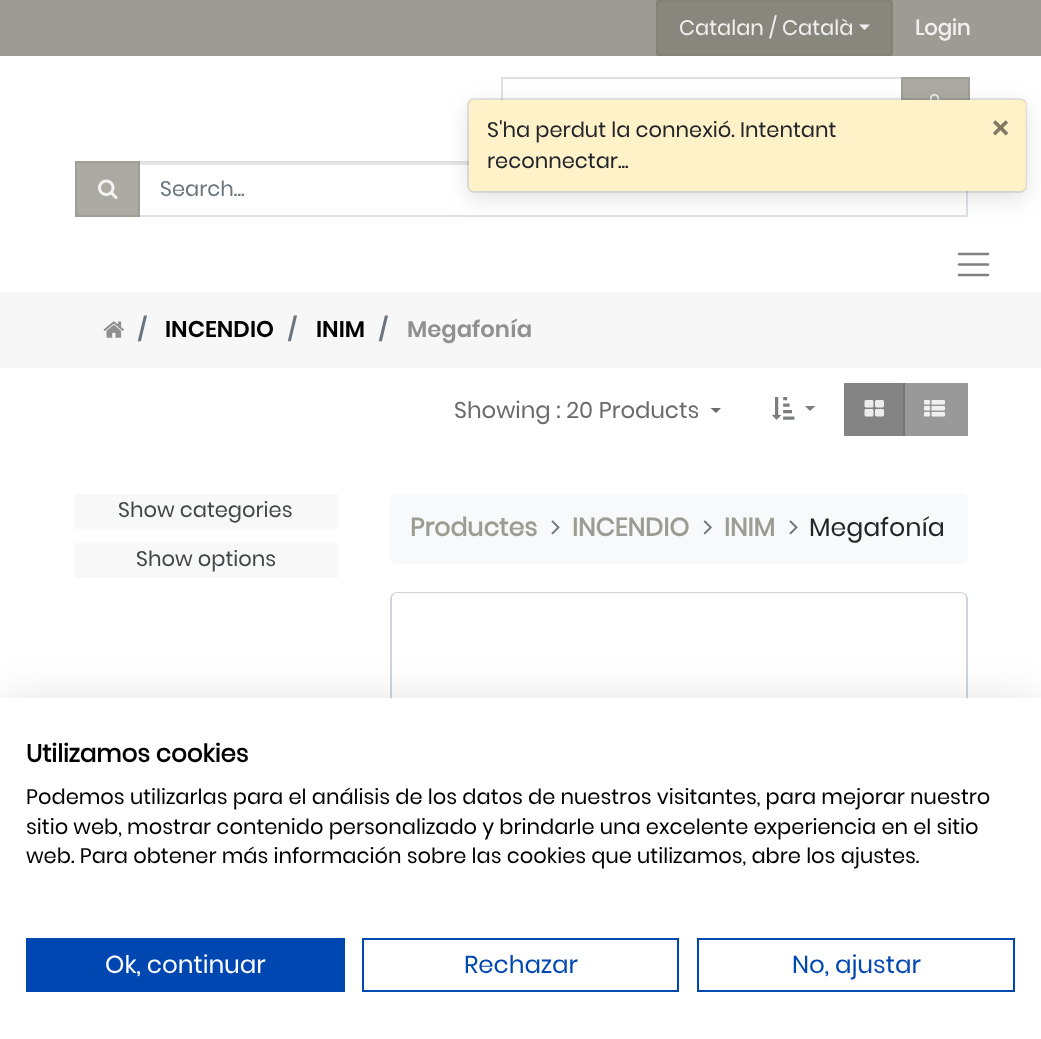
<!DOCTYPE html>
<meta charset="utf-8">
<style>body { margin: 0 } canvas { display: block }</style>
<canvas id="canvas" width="1041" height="1039"></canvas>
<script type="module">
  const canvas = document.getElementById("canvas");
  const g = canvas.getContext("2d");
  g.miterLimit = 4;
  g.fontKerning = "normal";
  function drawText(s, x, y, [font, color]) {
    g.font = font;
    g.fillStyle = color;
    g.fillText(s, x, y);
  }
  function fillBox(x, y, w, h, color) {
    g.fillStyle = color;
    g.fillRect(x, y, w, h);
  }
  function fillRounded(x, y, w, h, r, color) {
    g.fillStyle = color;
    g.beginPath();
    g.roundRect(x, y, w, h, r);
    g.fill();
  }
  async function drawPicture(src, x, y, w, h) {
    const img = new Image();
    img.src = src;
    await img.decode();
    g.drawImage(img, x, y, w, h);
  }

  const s1 = ["21px Poppins", "#F0F0EF"];
  const s2 = ["bold 21px Poppins", "#F0F0EF"];
  const s3 = ["21px Poppins", "#6C757D"];
  const s4 = ["600 22.75px Poppins", "#6C757D"];
  const s5 = ["600 22.75px Poppins", "#000000"];
  const s6 = ["600 22.75px Poppins", "#909090"];
  const s7 = ["22.75px Poppins", "#6A6A6A"];
  const s8 = ["21px Poppins", "#424649"];
  const s9 = ["bold 25.25px Poppins", "#9C9C94"];
  const s10 = ["25.25px Poppins", "#212529"];
  const s11 = ["21px Poppins", "#212529"];
  const s12 = ["bold 32px Poppins", "#807964"];
  const s13 = ["bold 24.5px Poppins", "#000000"];
  const s14 = ["21px Poppins", "#000000"];
  const s15 = ["24.5px Poppins", "#FFFFFF"];
  const s16 = ["24.5px Poppins", "#0047B2"];

  fillBox(0, 0, 1041, 1039, "#FFFFFF");
  fillBox(901, 77, 69, 23, "#ABABA4");
  fillBox(844, 383, 59, 53, "#848383");
  fillBox(0, 0, 1041, 56, "#9C9C94");
  g.fillStyle = "#87877E";
  g.beginPath();
  g.roundRect(657, 1, 235, 54, 1);
  g.fill();
  g.strokeStyle = "#828278";
  g.lineWidth = 2;
  g.stroke();
  drawText("Catalan / Català", 679, 35, s1);
  g.beginPath();
  g.moveTo(859, 24.5);
  g.lineTo(870, 24.5);
  g.lineTo(864.5, 30);
  g.closePath();
  g.fill();
  drawText("Login", 915, 35, s2);
  fillBox(501, 77, 402, 2, "#DEE2E6");
  fillBox(901, 77, 2, 2, "#A6A7A0");
  fillBox(501, 77, 2, 23, "#DEE2E6");
  g.strokeStyle = "rgba(156, 156, 148, 0.85)";
  g.strokeRect(902, 78, 67, 54);
  await drawPicture("pic1.png", 930, 94, 9, 6);
  fillBox(140, 163, 329, 2, "#E6E6E6");
  g.strokeStyle = "#DEE2E6";
  g.strokeRect(139, 162, 828, 54);
  fillBox(75, 161, 65, 56, "rgba(156, 156, 148, 0.85)");
  g.strokeStyle = "rgba(156, 156, 148, 0.85)";
  g.strokeRect(76, 162, 63, 54);
  await drawPicture("pic2.png", 98, 179, 20, 20);
  drawText("Search...", 160, 196, s3);
  g.beginPath();
  g.moveTo(959, 254);
  g.lineTo(988, 254);
  g.moveTo(959, 264.5);
  g.lineTo(988, 264.5);
  g.moveTo(959, 275);
  g.lineTo(988, 275);
  g.strokeStyle = "#808080";
  g.lineWidth = 2.6;
  g.lineCap = "round";
  g.stroke();
  fillBox(0, 292, 1041, 76, "#F7F7F7");
  await drawPicture("pic3.png", 103, 321, 21, 17);
  drawText("/", 138, 337, s4);
  drawText("INCENDIO", 165, 337, s5);
  drawText("/", 288, 337, s4);
  drawText("INIM", 316, 337, s5);
  drawText("/", 379, 337, s4);
  drawText("Megafonía", 407, 337, s6);
  drawText("Showing : 20 Products", 454, 418, s7);
  g.beginPath();
  g.moveTo(710.5, 408);
  g.lineTo(721, 408);
  g.lineTo(716, 413);
  g.closePath();
  g.fill();
  await drawPicture("pic4.png", 772, 397, 23, 23);
  g.fillStyle = "#7B7E80";
  g.beginPath();
  g.moveTo(805, 406);
  g.lineTo(815.5, 406);
  g.lineTo(810, 411);
  g.closePath();
  g.fill();
  await drawPicture("pic5.png", 864, 400, 20, 17);
  fillBox(905, 383, 63, 53, "#999999");
  fillBox(903, 383, 2, 53, "#747474");
  await drawPicture("pic6.png", 924, 400, 21, 17);
  fillRounded(75, 494, 263, 35, 2, "#F8F8F8");
  drawText("Show categories", 118, 517, s8);
  fillRounded(75, 543, 263, 35, 2, "#F8F8F8");
  drawText("Show options", 136, 566, s8);
  fillRounded(390, 494, 578, 70, 7, "#F8F9FA");
  drawText("Productes", 410, 536, s9);
  await drawPicture("pic7.png", 551, 520, 9, 15);
  drawText("INCENDIO", 572, 536, s9);
  await drawPicture("pic8.png", 703, 520, 9, 15);
  drawText("INIM", 724, 536, s9);
  await drawPicture("pic7.png", 789, 520, 9, 15);
  drawText("Megafonía", 809, 536, s10);
  g.beginPath();
  g.roundRect(391, 593, 576, 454, 6);
  g.strokeStyle = "#CED4DA";
  g.lineWidth = 2;
  g.stroke();
  g.fillStyle = "rgba(255, 255, 255, 0.9)";
  g.beginPath();
  g.moveTo(397, 593);
  g.lineTo(961, 593);
  g.bezierCurveTo(964, 593, 966, 595, 966, 598);
  g.lineTo(966, 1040);
  g.lineTo(392, 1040);
  g.lineTo(392, 598);
  g.bezierCurveTo(392, 595, 394, 593, 397, 593);
  g.closePath();
  g.fill();
  g.fillStyle = "rgba(0, 0, 0, 0.1)";
  g.filter = "blur(10.5px)";
  g.beginPath();
  g.roundRect(467, 105, 560, 95, 7);
  g.fill();
  g.filter = "none";
  fillRounded(469, 100, 557, 91, 5, "#FFC107");
  g.beginPath();
  g.roundRect(468, 99, 558, 93, 6);
  g.strokeStyle = "rgba(0, 0, 0, 0.1)";
  g.stroke();
  fillRounded(469, 100, 557, 91, 5, "rgba(255, 255, 255, 0.78)");
  drawText("S'ha perdut la connexió. Intentant", 487, 137, s11);
  drawText("reconnectar...", 487, 168, s11);
  drawText("×", 992, 140, s12);
  g.fillStyle = "rgba(0, 0, 0, 0.1)";
  g.filter = "blur(21px)";
  g.beginPath();
  g.rect(0, 698, 1041, 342);
  g.fill();
  g.filter = "none";
  fillBox(0, 698, 1041, 341, "#FFFFFF");
  drawText("Utilizamos cookies", 26, 762, s13);
  drawText("Podemos utilizarlas para el análisis de los datos de nuestros visitantes, para mejorar nuestro", 26, 804, s14);
  drawText("sitio web, mostrar contenido personalizado y brindarle una excelente experiencia en el sitio", 26, 834, s14);
  drawText("web. Para obtener más información sobre las cookies que utilizamos, abre los ajustes.", 26, 863, s14);
  fillBox(26, 938, 319, 54, "#0047B2");
  drawText("Ok, continuar", 105, 973, s15);
  g.strokeStyle = "#0047B2";
  g.strokeRect(363, 939, 315, 52);
  drawText("Rechazar", 464, 973, s16);
  g.strokeRect(698, 939, 316, 52);
  drawText("No, ajustar", 792, 973, s16);
</script>
